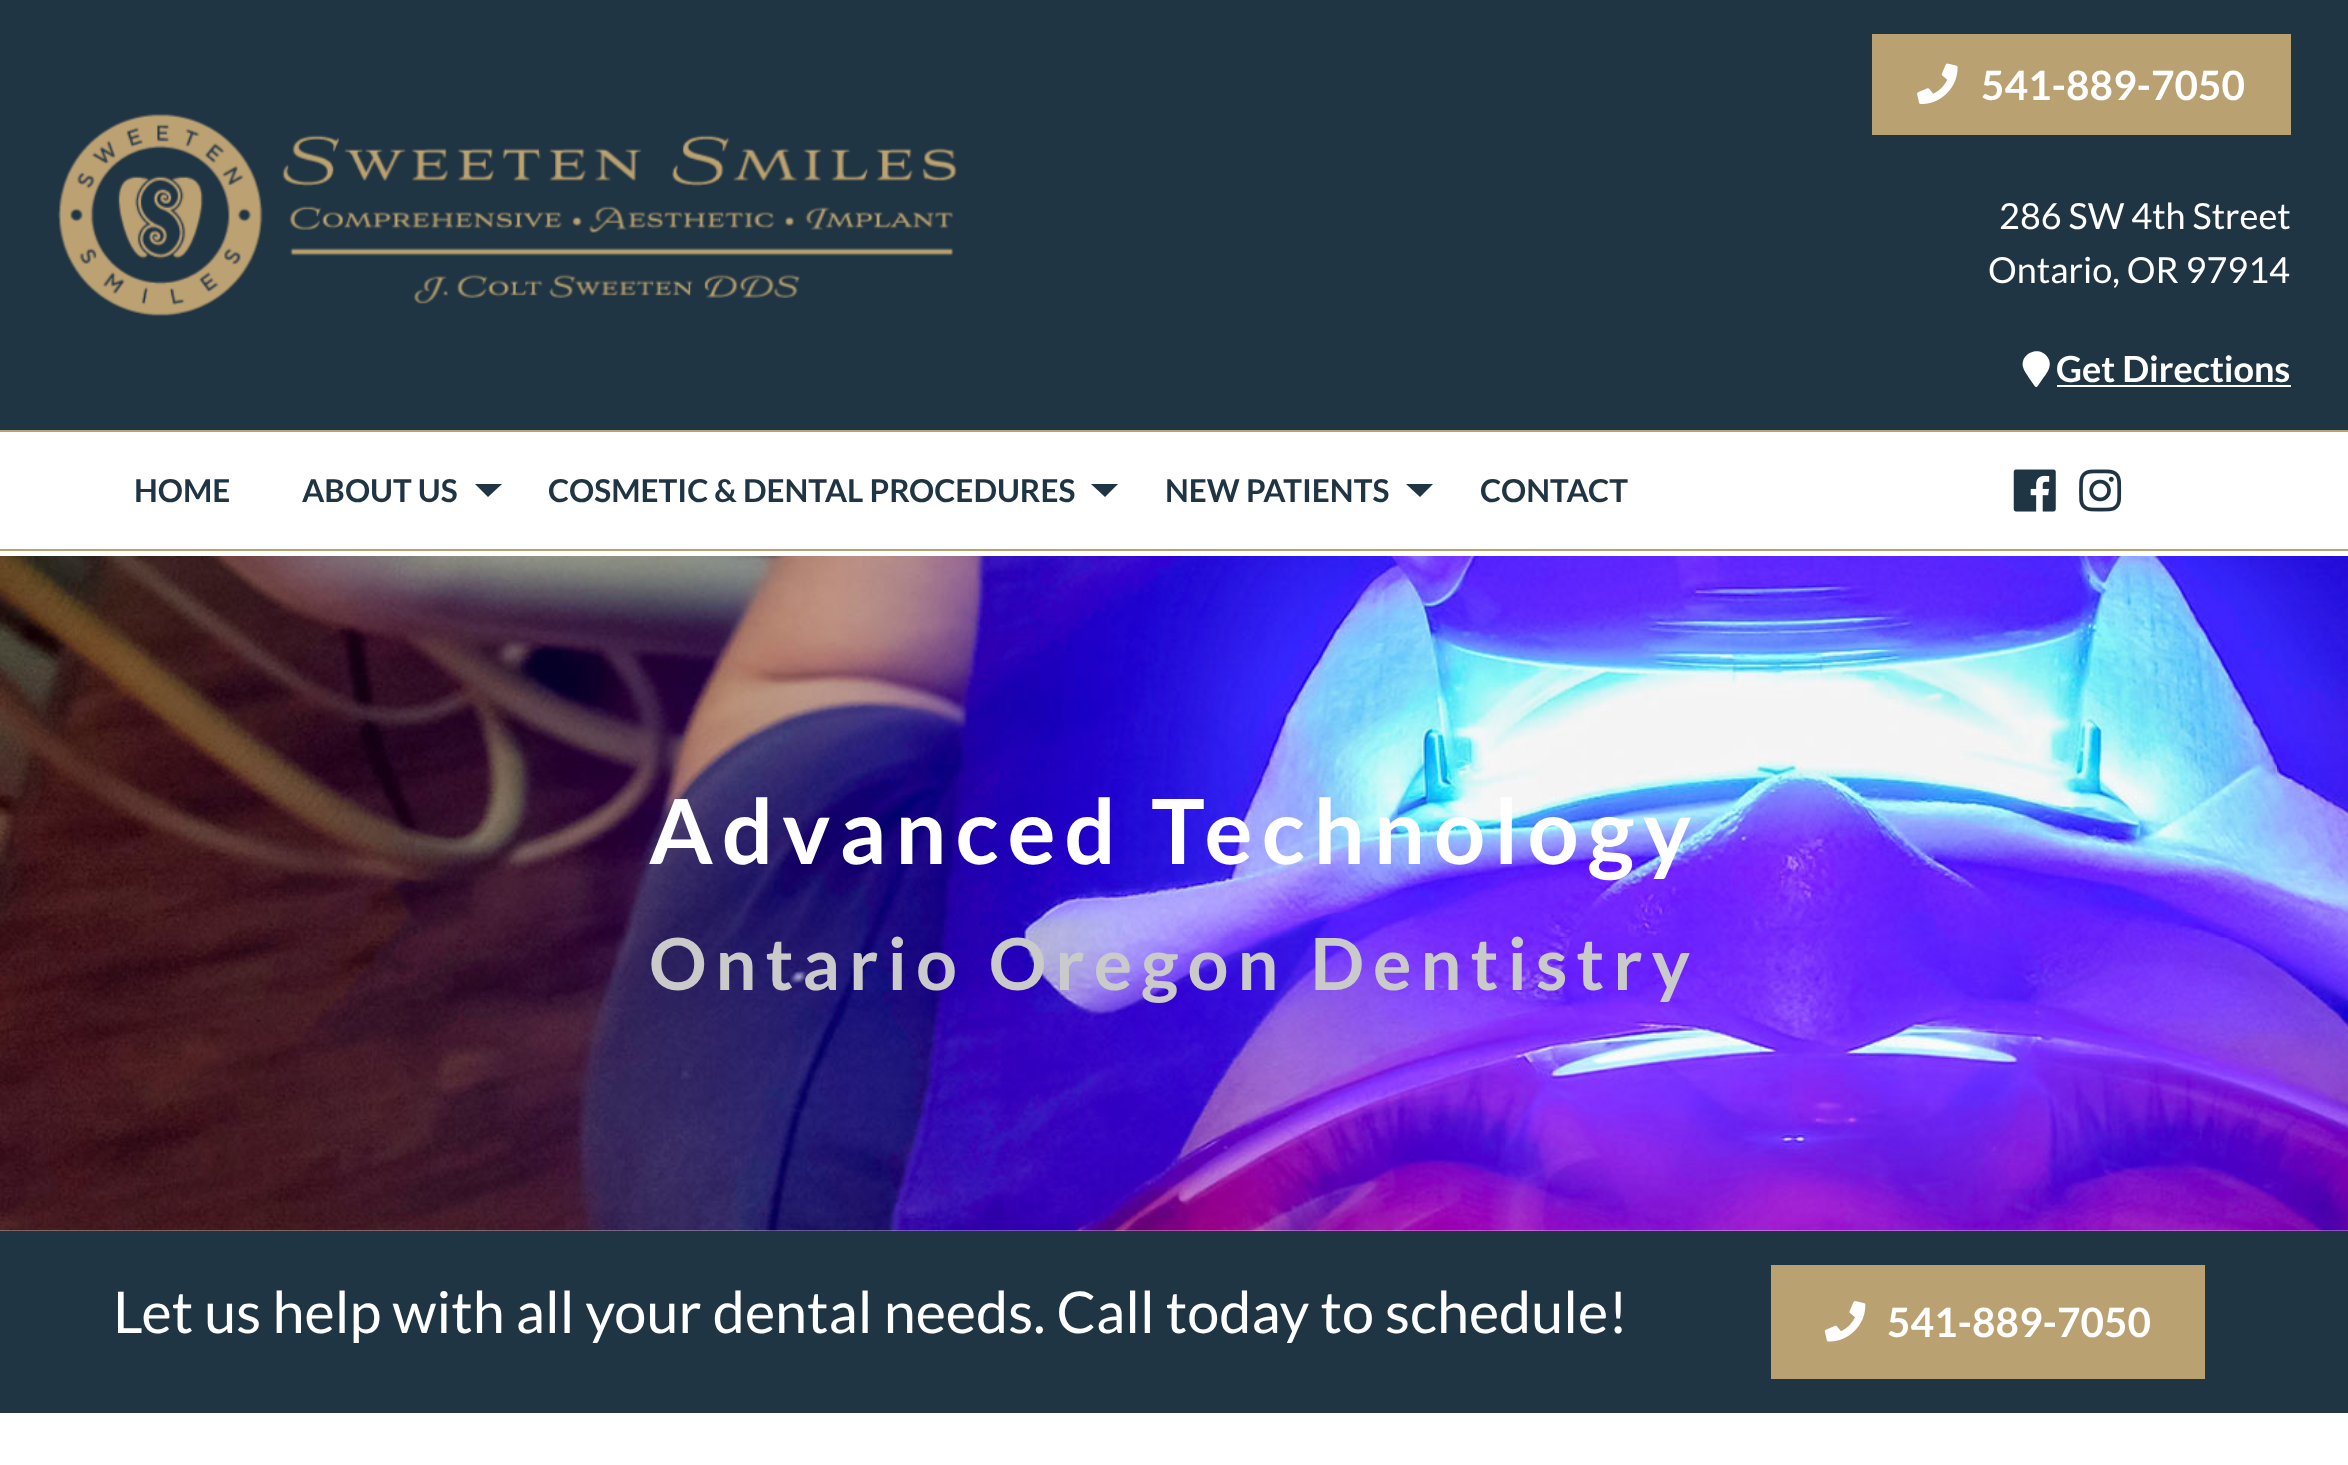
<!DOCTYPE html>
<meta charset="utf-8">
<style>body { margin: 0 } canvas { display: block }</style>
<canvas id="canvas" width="2348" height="1465"></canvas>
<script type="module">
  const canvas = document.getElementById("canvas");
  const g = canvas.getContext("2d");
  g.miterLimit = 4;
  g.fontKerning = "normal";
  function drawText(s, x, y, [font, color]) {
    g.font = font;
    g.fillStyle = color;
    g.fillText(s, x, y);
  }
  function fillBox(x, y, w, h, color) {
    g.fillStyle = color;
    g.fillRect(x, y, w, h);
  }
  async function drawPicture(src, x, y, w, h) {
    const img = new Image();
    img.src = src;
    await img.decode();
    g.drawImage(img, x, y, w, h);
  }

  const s1 = ["bold 40.5px Lato", "#FFFFFF"];
  const s2 = ["36px Lato", "#FFFFFF"];
  const s3 = ["bold 36px Lato", "#FFFFFF"];
  const s4 = ["bold 31.5px Lato", "#203544"];
  const s5 = ["bold 90px Lato", "#FFFFFF"];
  const s6 = ["bold 72px Lato", "#CACACA"];
  const s7 = ["57.6px Lato", "#FFFFFF"];

  fillBox(0, 0, 2348, 1465, "#FFFFFF");
  fillBox(0, 0, 2348, 430, "#203544");
  await drawPicture("pic1.png", 57, 113, 900, 203);
  fillBox(1872, 34, 419, 101, "#BAA172");
  await drawPicture("pic2.png", 1917, 63, 41, 42);
  drawText("541-889-7050", 1981, 100, s1);
  drawText("286 SW 4th Street", 1999, 229, s2);
  drawText("Ontario, OR 97914", 1988, 283, s2);
  g.beginPath();
  g.moveTo(2035, 386.5);
  g.lineTo(2029, 378);
  g.bezierCurveTo(2027, 374.5, 2024, 371, 2023, 367);
  g.bezierCurveTo(2020, 353, 2039.5, 345, 2047.5, 357);
  g.bezierCurveTo(2053.5, 366, 2046.5, 373.5, 2041.5, 380.5);
  g.lineTo(2037, 387);
  g.bezierCurveTo(2036.5, 387, 2035.5, 387, 2035, 386.5);
  g.closePath();
  g.fill();
  drawText("Get Directions", 2056, 382, s3);
  fillBox(2057, 385, 234, 2, "#FFFFFF");
  fillBox(0, 430, 2348, 2, "#BAA172");
  fillBox(0, 549, 2348, 2, "#BAA172");
  drawText("HOME", 134, 502, s4);
  drawText("ABOUT US", 302, 502, s4);
  g.beginPath();
  g.moveTo(475, 484);
  g.lineTo(502, 484);
  g.lineTo(488, 497);
  g.closePath();
  g.fill();
  drawText("COSMETIC & DENTAL PROCEDURES", 548, 502, s4);
  g.beginPath();
  g.moveTo(1091, 484);
  g.lineTo(1118, 484);
  g.lineTo(1105, 497);
  g.closePath();
  g.fill();
  drawText("NEW PATIENTS", 1165, 502, s4);
  g.beginPath();
  g.moveTo(1406, 484);
  g.lineTo(1433, 484);
  g.lineTo(1420, 497);
  g.closePath();
  g.fill();
  drawText("CONTACT", 1480, 502, s4);
  await drawPicture("pic3.png", 2013, 469, 43, 43);
  await drawPicture("pic4.png", 2079, 469, 43, 43);
  await drawPicture("pic5.png", 0, 556, 2348, 675);
  g.letterSpacing = "9px";
  drawText("Advanced Technology", 649, 864, s5);
  drawText("Ontario Oregon Dentistry", 649, 990, s6);
  fillBox(0, 1231, 2348, 182, "#203544");
  g.letterSpacing = "0px";
  drawText("Let us help with all your dental needs. Call today to schedule!", 113, 1333, s7);
  fillBox(1771, 1265, 434, 114, "#BAA172");
  await drawPicture("pic6.png", 1824, 1301, 42, 41);
  drawText("541-889-7050", 1887, 1337, s1);
</script>
